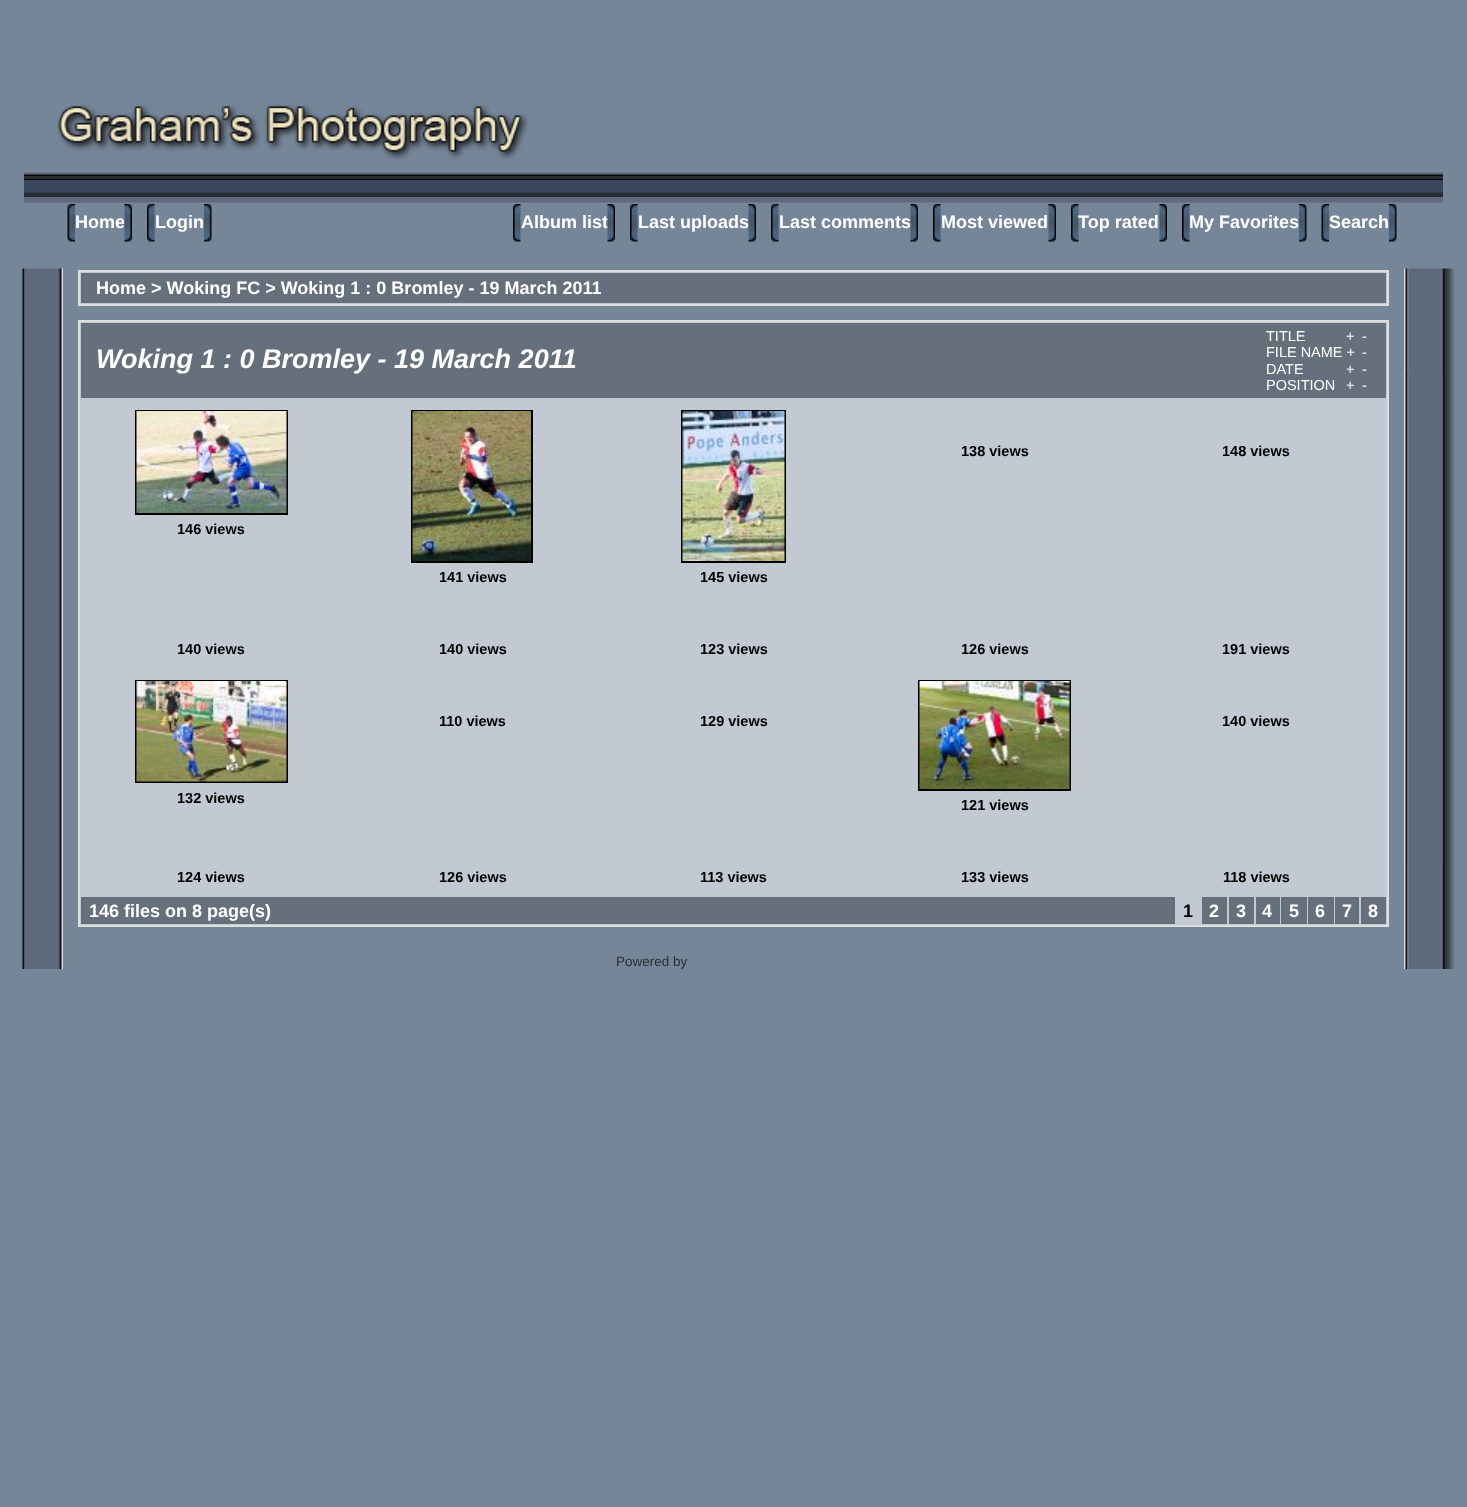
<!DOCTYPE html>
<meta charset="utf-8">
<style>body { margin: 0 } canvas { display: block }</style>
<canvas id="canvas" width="1467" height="1507"></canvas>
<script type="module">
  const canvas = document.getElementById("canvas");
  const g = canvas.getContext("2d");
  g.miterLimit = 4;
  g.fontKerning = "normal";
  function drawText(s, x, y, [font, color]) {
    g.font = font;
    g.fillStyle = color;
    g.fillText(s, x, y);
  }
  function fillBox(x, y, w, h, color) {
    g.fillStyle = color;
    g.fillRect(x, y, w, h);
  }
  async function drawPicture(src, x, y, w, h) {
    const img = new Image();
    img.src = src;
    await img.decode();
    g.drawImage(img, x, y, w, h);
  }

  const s1 = ["bold 18px Liberation Sans", "#FFFFFF"];
  const s2 = ["italic bold 27px Liberation Sans", "#FFFFFF"];
  const s3 = ["14.5px Liberation Sans", "#FFFFFF"];
  const s4 = ["bold 14.5px Liberation Sans", "#000000"];
  const s5 = ["bold 18px Liberation Sans", "#000000"];
  const s6 = ["13.5px Liberation Sans", "#292E34"];

  fillBox(0, 0, 1467, 1507, "#758698");
  await drawPicture("pic1.png", 57, 104, 472, 56);
  await drawPicture("pic2.png", 24, 172, 1419, 31);
  await drawPicture("pic3.png", 67, 204, 8, 38);
  drawText("Home", 75, 228, s1);
  await drawPicture("pic4.png", 124, 204, 8, 38);
  await drawPicture("pic5.png", 147, 204, 8, 38);
  drawText("Login", 155, 228, s1);
  await drawPicture("pic6.png", 204, 204, 8, 38);
  await drawPicture("pic7.png", 513, 204, 8, 38);
  drawText("Album list", 521, 228, s1);
  await drawPicture("pic8.png", 607, 204, 8, 38);
  await drawPicture("pic5.png", 630, 204, 8, 38);
  drawText("Last uploads", 638, 228, s1);
  await drawPicture("pic9.png", 748, 204, 8, 38);
  await drawPicture("pic5.png", 771, 204, 8, 38);
  drawText("Last comments", 779, 228, s1);
  await drawPicture("pic10.png", 910, 204, 8, 38);
  await drawPicture("pic5.png", 933, 204, 8, 38);
  drawText("Most viewed", 941, 228, s1);
  await drawPicture("pic11.png", 1048, 204, 8, 38);
  await drawPicture("pic12.png", 1071, 204, 8, 38);
  drawText("Top rated", 1078, 228, s1);
  await drawPicture("pic11.png", 1159, 204, 8, 38);
  await drawPicture("pic12.png", 1182, 204, 8, 38);
  drawText("My Favorites", 1189, 228, s1);
  await drawPicture("pic6.png", 1299, 204, 8, 38);
  await drawPicture("pic13.png", 1321, 204, 8, 38);
  drawText("Search", 1329, 228, s1);
  await drawPicture("pic6.png", 1389, 204, 8, 38);
  await drawPicture("pic14.png", 22, 268, 41, 701);
  fillBox(23, 374, 1, 491, "#0B0D0F");
  g.fillStyle = "#C2C9D3";
  g.beginPath();
  g.rect(79, 271, 1309, 34);
  g.fill();
  g.strokeStyle = "#DEDEDE";
  g.lineWidth = 2;
  g.stroke();
  fillBox(81, 273, 1305, 30, "#66707C");
  drawText("Home > Woking FC > Woking 1 : 0 Bromley - 19 March 2011", 96, 294, s1);
  g.fillStyle = "#C2C9D3";
  g.beginPath();
  g.rect(79, 321, 1309, 605);
  g.fill();
  g.stroke();
  fillBox(81, 323, 1305, 75, "#66707C");
  drawText("Woking 1 : 0 Bromley - 19 March 2011", 96, 368, s2);
  drawText("TITLE", 1266, 341, s3);
  drawText("+", 1346, 341, s3);
  drawText("-", 1362, 341, s3);
  drawText("FILE NAME +", 1266, 357, s3);
  drawText("-", 1362, 357, s3);
  drawText("DATE", 1266, 374, s3);
  drawText("+", 1346, 374, s3);
  drawText("-", 1362, 374, s3);
  drawText("POSITION", 1266, 390, s3);
  drawText("+", 1346, 390, s3);
  drawText("-", 1362, 390, s3);
  drawText("138 views", 961, 456, s4);
  drawText("148 views", 1222, 456, s4);
  g.strokeStyle = "#000000";
  g.strokeRect(136, 411, 151, 103);
  await drawPicture("pic15.png", 136, 411, 151, 102);
  drawText("146 views", 177, 534, s4);
  g.strokeRect(412, 411, 120, 151);
  await drawPicture("pic16.png", 412, 411, 119, 150);
  drawText("141 views", 439, 582, s4);
  g.strokeRect(682, 411, 103, 151);
  await drawPicture("pic17.png", 682, 411, 103, 150);
  drawText("145 views", 700, 582, s4);
  drawText("140 views", 177, 654, s4);
  drawText("140 views", 439, 654, s4);
  drawText("123 views", 700, 654, s4);
  drawText("126 views", 961, 654, s4);
  drawText("191 views", 1222, 654, s4);
  drawText("110 views", 439, 726, s4);
  drawText("129 views", 700, 726, s4);
  drawText("140 views", 1222, 726, s4);
  g.strokeRect(136, 681, 151, 101);
  await drawPicture("pic18.png", 136, 681, 151, 101);
  drawText("132 views", 177, 803, s4);
  g.strokeRect(919, 681, 151, 109);
  await drawPicture("pic19.png", 919, 681, 151, 108);
  drawText("121 views", 961, 810, s4);
  drawText("124 views", 177, 882, s4);
  drawText("126 views", 439, 882, s4);
  drawText("113 views", 700, 882, s4);
  drawText("133 views", 961, 882, s4);
  drawText("118 views", 1223, 882, s4);
  fillBox(81, 897, 1094, 27, "#66707C");
  drawText("146 files on 8 page(s)", 89, 917, s1);
  drawText("1", 1183, 917, s5);
  fillBox(1202, 897, 25, 27, "#66707C");
  drawText("2", 1209, 917, s1);
  fillBox(1229, 897, 25, 27, "#66707C");
  drawText("3", 1236, 917, s1);
  fillBox(1256, 897, 24, 27, "#66707C");
  drawText("4", 1262, 917, s1);
  fillBox(1281, 897, 26, 27, "#66707C");
  drawText("5", 1289, 917, s1);
  fillBox(1308, 897, 26, 27, "#66707C");
  drawText("6", 1315, 917, s1);
  fillBox(1335, 897, 24, 27, "#66707C");
  drawText("7", 1342, 917, s1);
  fillBox(1361, 897, 25, 27, "#66707C");
  drawText("8", 1368, 917, s1);
  drawText("Powered by", 616, 966, s6);
  await drawPicture("pic20.png", 1404, 268, 51, 701);
  await drawPicture("pic21.png", 1406, 373, 37, 492);
</script>
